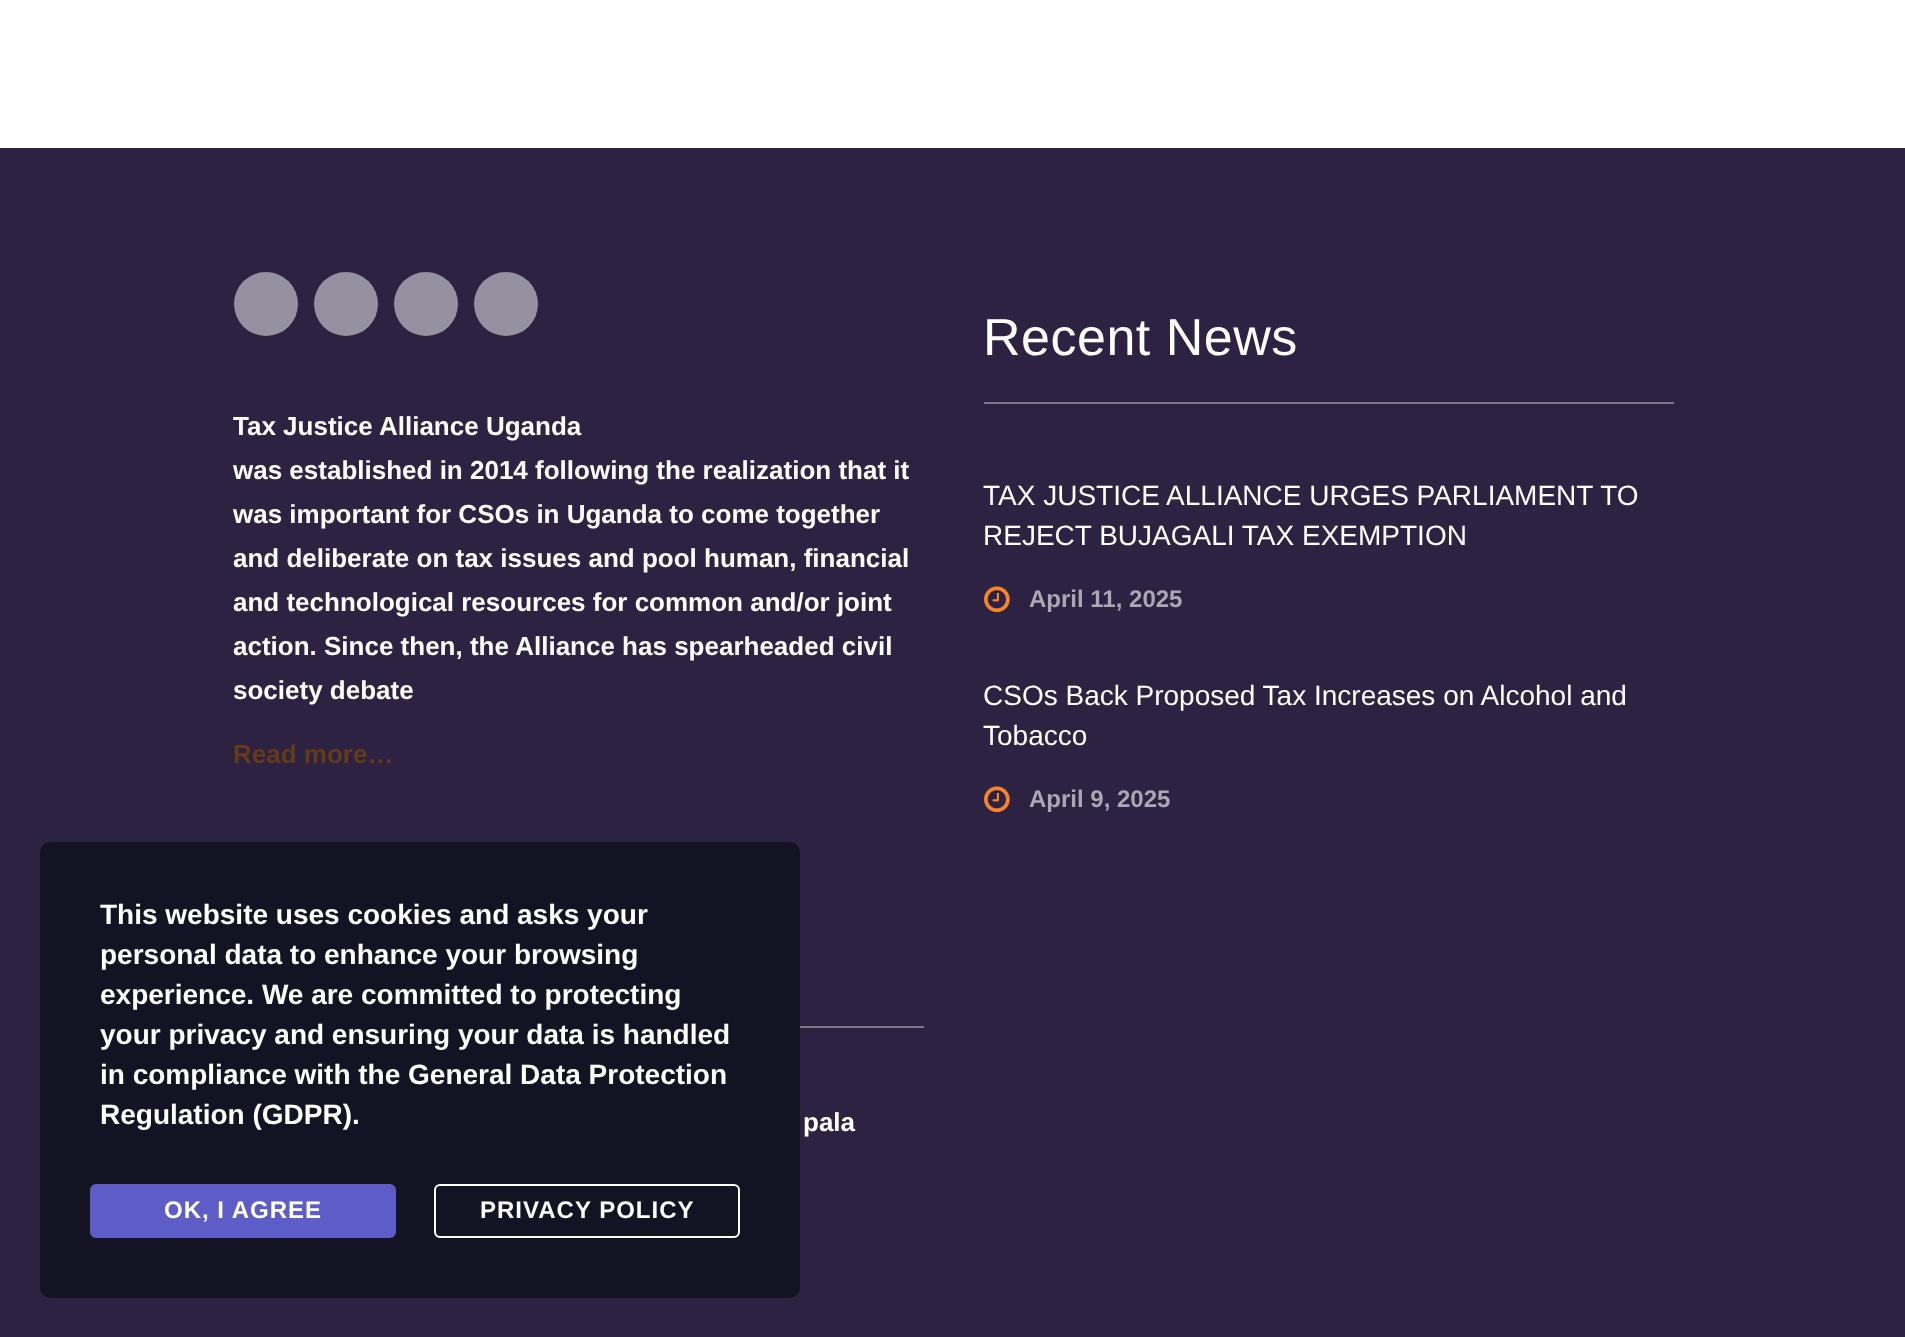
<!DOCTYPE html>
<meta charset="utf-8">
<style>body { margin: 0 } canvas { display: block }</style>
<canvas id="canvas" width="1905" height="1337"></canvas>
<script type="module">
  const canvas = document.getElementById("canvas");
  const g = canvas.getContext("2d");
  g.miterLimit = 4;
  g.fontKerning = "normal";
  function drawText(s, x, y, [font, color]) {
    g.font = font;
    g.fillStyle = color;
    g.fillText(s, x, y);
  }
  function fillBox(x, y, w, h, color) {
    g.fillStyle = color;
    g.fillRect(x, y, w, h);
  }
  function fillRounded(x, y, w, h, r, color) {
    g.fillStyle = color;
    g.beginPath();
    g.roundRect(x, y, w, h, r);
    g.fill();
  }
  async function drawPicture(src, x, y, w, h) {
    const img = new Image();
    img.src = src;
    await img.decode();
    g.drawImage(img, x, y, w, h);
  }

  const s1 = ["bold 26px Liberation Sans", "#FFFFFF"];
  const s2 = ["bold 26px Liberation Sans", "#633B19"];
  const s3 = ["52px Liberation Sans", "#FFFFFF"];
  const s4 = ["28px Liberation Sans", "#FFFFFF"];
  const s5 = ["bold 24px Liberation Sans", "#ABA7B3"];
  const s6 = ["bold 28px Liberation Sans", "#FFFFFF"];
  const s7 = ["bold 24px Liberation Sans", "#FFFFFF"];

  fillBox(0, 0, 1905, 1337, "#FFFFFF");
  fillBox(0, 148, 1905, 1189, "#2D2241");
  g.fillStyle = "#9691A0";
  g.beginPath();
  g.arc(266, 304, 32, 0, Math.PI * 2);
  g.fill();
  g.beginPath();
  g.arc(346, 304, 32, 0, Math.PI * 2);
  g.fill();
  g.beginPath();
  g.arc(426, 304, 32, 0, Math.PI * 2);
  g.fill();
  g.beginPath();
  g.arc(506, 304, 32, 0, Math.PI * 2);
  g.fill();
  drawText("Tax Justice Alliance Uganda", 233, 435, s1);
  drawText("was established in 2014 following the realization that it", 233, 479, s1);
  drawText("was important for CSOs in Uganda to come together", 233, 523, s1);
  drawText("and deliberate on tax issues and pool human, financial", 233, 567, s1);
  drawText("and technological resources for common and/or joint", 233, 611, s1);
  drawText("action. Since then, the Alliance has spearheaded civil", 233, 655, s1);
  drawText("society debate", 233, 699, s1);
  drawText("Read more…", 233, 763, s2);
  fillBox(984, 402, 690, 2, "#7D7787");
  g.letterSpacing = "0.5px";
  drawText("Recent News", 983, 355, s3);
  g.letterSpacing = "0px";
  drawText("TAX JUSTICE ALLIANCE URGES PARLIAMENT TO", 983, 505, s4);
  drawText("REJECT BUJAGALI TAX EXEMPTION", 983, 545, s4);
  await drawPicture("pic1.png", 984, 586, 26, 27);
  drawText("April 11, 2025", 1029, 607, s5);
  drawText("CSOs Back Proposed Tax Increases on Alcohol and", 983, 705, s4);
  drawText("Tobacco", 983, 745, s4);
  await drawPicture("pic1.png", 984, 786, 26, 27);
  drawText("April 9, 2025", 1029, 807, s5);
  fillBox(800, 1026, 124, 2, "#7D7787");
  drawText("pala", 803, 1131, s1);
  fillRounded(40, 842, 760, 456, 10, "#131323");
  drawText("This website uses cookies and asks your", 100, 924, s6);
  drawText("personal data to enhance your browsing", 100, 964, s6);
  drawText("experience. We are committed to protecting", 100, 1004, s6);
  drawText("your privacy and ensuring your data is handled", 100, 1044, s6);
  drawText("in compliance with the General Data Protection", 100, 1084, s6);
  drawText("Regulation (GDPR).", 100, 1124, s6);
  g.fillStyle = "#5E5CC7";
  g.beginPath();
  g.roundRect(91, 1185, 304, 52, 5);
  g.fill();
  g.strokeStyle = "#5E5CC7";
  g.lineWidth = 2;
  g.stroke();
  g.letterSpacing = "1px";
  drawText("OK, I AGREE", 164, 1218, s7);
  g.beginPath();
  g.roundRect(435, 1185, 304, 52, 5);
  g.strokeStyle = "#FFFFFF";
  g.stroke();
  drawText("PRIVACY POLICY", 480, 1218, s7);
</script>
